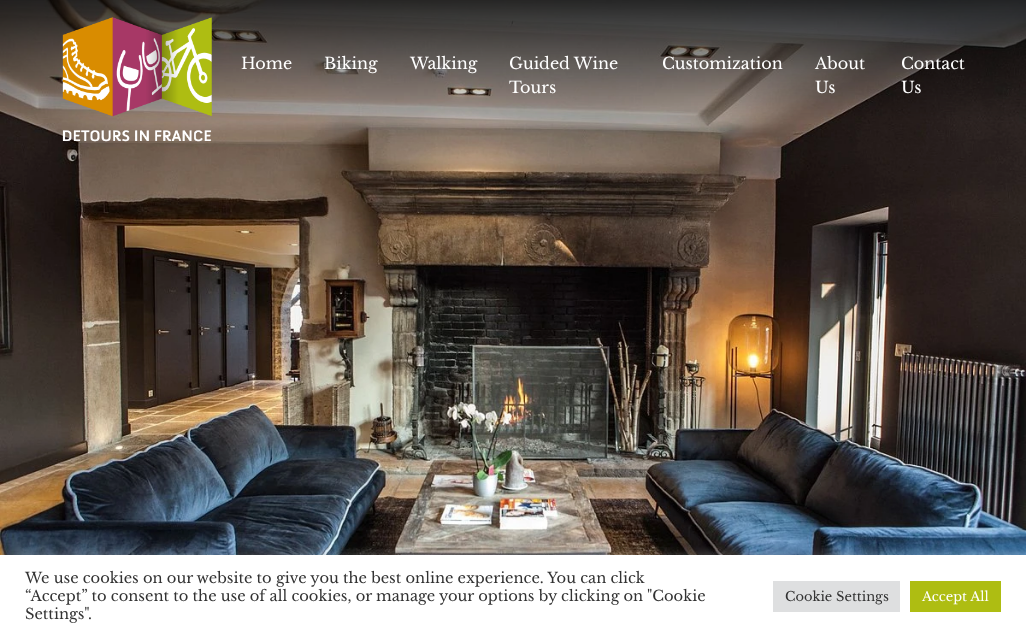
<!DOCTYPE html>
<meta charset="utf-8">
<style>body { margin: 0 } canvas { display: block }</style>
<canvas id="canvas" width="1026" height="637"></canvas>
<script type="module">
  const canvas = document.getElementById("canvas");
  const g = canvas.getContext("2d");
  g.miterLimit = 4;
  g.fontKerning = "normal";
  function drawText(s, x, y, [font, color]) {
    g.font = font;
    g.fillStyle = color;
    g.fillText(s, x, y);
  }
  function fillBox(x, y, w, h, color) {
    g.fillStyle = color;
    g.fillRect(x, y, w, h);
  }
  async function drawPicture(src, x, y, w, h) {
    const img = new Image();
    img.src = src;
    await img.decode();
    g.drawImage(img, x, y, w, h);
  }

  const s1 = ["16px Libre Baskerville", "#FFFFFF"];
  const s2 = ["14.65px Libre Baskerville", "#333333"];
  const s3 = ["13px Libre Baskerville", "#333333"];
  const s4 = ["13px Libre Baskerville", "#FFFFFF"];

  fillBox(0, 0, 1026, 637, "#FFFFFF");
  await drawPicture("pic1.png", 0, 0, 1026, 555);
  await drawPicture("pic2.png", 62, 17, 150, 125);
  drawText("Home", 241, 69, s1);
  drawText("Biking", 324, 69, s1);
  drawText("Walking", 410, 69, s1);
  drawText("Guided Wine", 509, 69, s1);
  drawText("Tours", 509, 93, s1);
  drawText("Customization", 662, 69, s1);
  drawText("About", 815, 69, s1);
  drawText("Us", 815, 93, s1);
  drawText("Contact", 901, 69, s1);
  drawText("Us", 901, 93, s1);
  g.fillStyle = "rgba(172, 171, 171, 0.3)";
  g.filter = "blur(5px)";
  g.beginPath();
  g.rect(0, 554, 1026, 82);
  g.fill();
  g.filter = "none";
  fillBox(0, 555, 1026, 82, "#FFFFFF");
  drawText("We use cookies on our website to give you the best online experience. You can click", 25, 583, s2);
  drawText("“Accept” to consent to the use of all cookies, or manage your options by clicking on \"Cookie", 25, 601, s2);
  drawText("Settings\".", 25, 619, s2);
  fillBox(773, 581, 127, 31, "#DEDFE0");
  drawText("Cookie Settings", 785, 601, s3);
  fillBox(910, 581, 91, 31, "#AEBD12");
  drawText("Accept All", 922, 601, s4);
</script>
